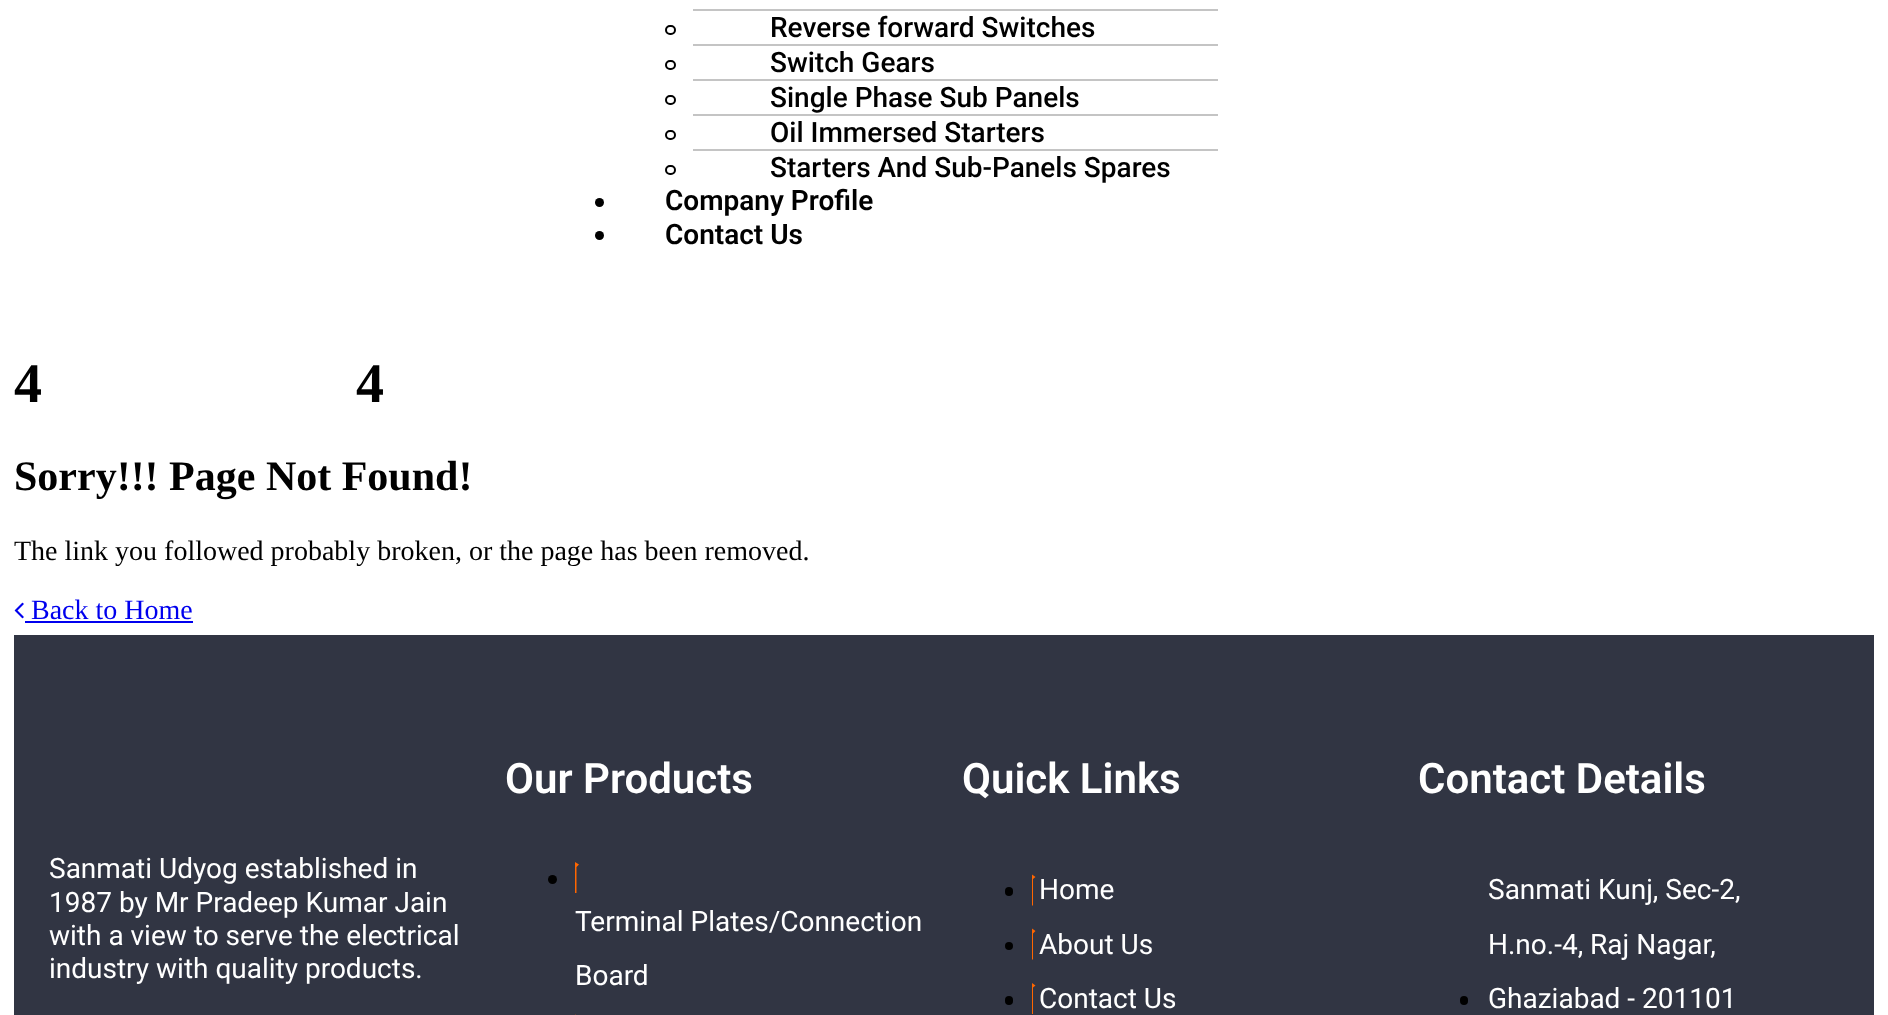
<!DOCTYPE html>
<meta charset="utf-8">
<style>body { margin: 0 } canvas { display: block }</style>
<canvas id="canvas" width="1888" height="1015"></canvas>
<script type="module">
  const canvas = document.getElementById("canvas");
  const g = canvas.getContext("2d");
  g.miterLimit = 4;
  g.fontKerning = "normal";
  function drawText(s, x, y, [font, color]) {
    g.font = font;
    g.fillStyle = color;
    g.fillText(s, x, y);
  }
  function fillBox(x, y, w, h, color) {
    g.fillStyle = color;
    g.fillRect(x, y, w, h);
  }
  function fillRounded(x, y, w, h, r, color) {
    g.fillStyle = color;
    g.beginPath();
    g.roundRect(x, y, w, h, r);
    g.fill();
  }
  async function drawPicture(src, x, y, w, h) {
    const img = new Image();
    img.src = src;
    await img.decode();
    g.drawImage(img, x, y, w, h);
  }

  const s1 = ["500 28px Roboto", "#000000"];
  const s2 = ["600 28px Roboto", "#000000"];
  const s3 = ["bold 56px Liberation Serif", "#000000"];
  const s4 = ["bold 42px Liberation Serif", "#000000"];
  const s5 = ["28px Liberation Serif", "#000000"];
  const s6 = ["28px Liberation Serif", "#0000EE"];
  const s7 = ["28px Roboto", "#FFFFFF"];
  const s8 = ["600 42px Roboto", "#FFFFFF"];

  fillBox(0, 0, 1888, 1015, "#FFFFFF");
  fillBox(693, 9, 525, 2, "#C4C4C4");
  fillBox(693, 44, 525, 2, "#C4C4C4");
  g.beginPath();
  g.roundRect(666, 26, 9, 8, 4);
  g.strokeStyle = "#000000";
  g.lineWidth = 2;
  g.stroke();
  drawText("Reverse forward Switches", 770, 37, s1);
  fillBox(693, 79, 525, 2, "#C4C4C4");
  g.beginPath();
  g.roundRect(666, 61, 9, 8, 4);
  g.stroke();
  drawText("Switch Gears", 770, 72, s1);
  fillBox(693, 114, 525, 2, "#C4C4C4");
  g.beginPath();
  g.roundRect(666, 96, 9, 8, 4);
  g.stroke();
  drawText("Single Phase Sub Panels", 770, 107, s1);
  fillBox(693, 149, 525, 2, "#C4C4C4");
  g.beginPath();
  g.roundRect(666, 131, 9, 8, 4);
  g.stroke();
  drawText("Oil Immersed Starters", 770, 142, s1);
  g.beginPath();
  g.roundRect(666, 166, 9, 8, 4);
  g.stroke();
  drawText("Starters And Sub-Panels Spares", 770, 177, s1);
  g.beginPath();
  g.arc(599.5, 202.5, 4.5, 0, Math.PI * 2);
  g.fill();
  drawText("Company Profile", 665, 210, s2);
  g.beginPath();
  g.arc(599.5, 235.5, 4.5, 0, Math.PI * 2);
  g.fill();
  drawText("Contact Us", 665, 244, s2);
  drawText("4", 14, 402, s3);
  drawText("4", 356, 402, s3);
  drawText("Sorry!!! Page Not Found!", 14, 490, s4);
  drawText("The link you followed probably broken, or the page has been removed.", 14, 560, s5);
  await drawPicture("pic1.png", 14, 602, 10, 17);
  drawText("Back to Home", 31, 619, s6);
  fillBox(25, 621, 168, 2, "#0000EE");
  fillBox(14, 635, 1860, 380, "#313543");
  drawText("Sanmati Udyog established in", 49, 878, s7);
  drawText("1987 by Mr Pradeep Kumar Jain", 49, 912, s7);
  drawText("with a view to serve the electrical", 49, 945, s7);
  drawText("industry with quality products.", 49, 978, s7);
  drawText("Our Products", 505, 793, s8);
  g.fillStyle = "#000000";
  g.beginPath();
  g.arc(552.5, 879.5, 4.5, 0, Math.PI * 2);
  g.fill();
  g.fillStyle = "#FF6600";
  g.beginPath();
  g.moveTo(579, 864.5);
  g.lineTo(576.5, 867);
  g.lineTo(576.5, 893);
  g.lineTo(575, 893);
  g.lineTo(575, 862);
  g.closePath();
  g.fill();
  drawText("Terminal Plates/Connection", 575, 931, s7);
  drawText("Board", 575, 985, s7);
  fillBox(575, 1014, 1, 1, "#5E4034");
  drawText("Quick Links", 962, 793, s8);
  fillRounded(1005, 887, 8, 9, 4, "#000000");
  g.fillStyle = "#FF6600";
  g.beginPath();
  g.moveTo(1035.5, 877);
  g.lineTo(1033, 879);
  g.lineTo(1033, 905.5);
  g.lineTo(1032, 905.5);
  g.lineTo(1032, 874.5);
  g.closePath();
  g.fill();
  drawText("Home", 1039, 899, s7);
  g.fillStyle = "#000000";
  g.beginPath();
  g.arc(1009, 946, 4, 0, Math.PI * 2);
  g.fill();
  g.fillStyle = "#FF6600";
  g.beginPath();
  g.moveTo(1035.5, 931);
  g.lineTo(1033, 933.5);
  g.lineTo(1033, 959.5);
  g.lineTo(1032, 959.5);
  g.lineTo(1032, 928.5);
  g.closePath();
  g.fill();
  drawText("About Us", 1039, 954, s7);
  fillRounded(1005, 996, 8, 9, 4, "#000000");
  g.fillStyle = "#FF6600";
  g.beginPath();
  g.moveTo(1035.5, 985.5);
  g.lineTo(1033, 987.5);
  g.lineTo(1033, 1014);
  g.lineTo(1032, 1014);
  g.lineTo(1032, 983);
  g.closePath();
  g.fill();
  drawText("Contact Us", 1039, 1008, s7);
  drawText("Contact Details", 1418, 793, s8);
  fillRounded(1460, 996, 8, 9, 4, "#000000");
  drawText("Sanmati Kunj, Sec-2,", 1488, 899, s7);
  drawText("H.no.-4, Raj Nagar,", 1488, 954, s7);
  drawText("Ghaziabad - 201101", 1488, 1008, s7);
</script>
